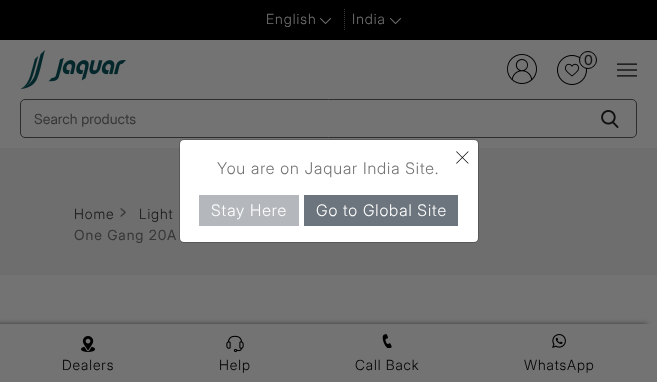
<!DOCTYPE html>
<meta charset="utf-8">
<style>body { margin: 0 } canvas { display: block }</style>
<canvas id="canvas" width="657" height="382"></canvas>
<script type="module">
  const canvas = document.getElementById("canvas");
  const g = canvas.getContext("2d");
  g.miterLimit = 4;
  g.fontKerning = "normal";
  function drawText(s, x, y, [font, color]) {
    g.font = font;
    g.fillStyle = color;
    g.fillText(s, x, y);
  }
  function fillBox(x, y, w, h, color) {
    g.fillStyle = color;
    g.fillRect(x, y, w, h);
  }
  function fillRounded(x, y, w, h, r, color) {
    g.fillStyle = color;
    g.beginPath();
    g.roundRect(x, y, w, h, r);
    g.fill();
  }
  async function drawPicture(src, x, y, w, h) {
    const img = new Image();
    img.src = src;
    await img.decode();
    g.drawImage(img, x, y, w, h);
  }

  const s1 = ["300 14px Inter", "#737373"];
  const s2 = ["300 14px Inter", "#000000"];
  const s3 = ["500 14px Inter", "#171717"];
  const s4 = ["14px Inter", "#363636"];
  const s5 = ["100 30px Inter", "#000000"];
  const s6 = ["300 16px Inter", "#737373"];
  const s7 = ["300 16px Inter", "#FFFFFF"];
  const s8 = ["300 14px Inter", "#171717"];

  fillBox(0, 0, 657, 382, "#6E6E6E");
  fillBox(0, 40, 657, 108, "#737373");
  fillBox(0, 0, 657, 40, "#000000");
  await drawPicture("pic1.png", 320, 18, 11, 6);
  g.letterSpacing = "1px";
  drawText("English", 266, 24, s1);
  g.beginPath();
  g.moveTo(344.5, 9);
  g.lineTo(344.5, 31);
  g.strokeStyle = "#3A3A3A";
  g.setLineDash([1, 1]);
  g.stroke();
  await drawPicture("pic1.png", 390, 18, 11, 6);
  drawText("India", 352, 24, s1);
  fillBox(0, 275, 657, 49, "#737373");
  g.fillStyle = "rgba(0, 0, 0, 0.5)";
  g.filter = "blur(2.5px)";
  g.beginPath();
  g.rect(-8, 324, 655, 58);
  g.fill();
  g.filter = "none";
  fillBox(0, 324, 657, 58, "#737373");
  await drawPicture("pic2.png", 81, 336, 14, 16);
  g.letterSpacing = "0.9px";
  drawText("Dealers", 62, 370, s2);
  await drawPicture("pic3.png", 226, 335, 18, 18);
  drawText("Help", 219, 370, s2);
  await drawPicture("pic4.png", 382, 334, 10, 14);
  drawText("Call Back", 355, 370, s2);
  await drawPicture("pic5.png", 552, 334, 14, 14);
  drawText("WhatsApp", 524, 370, s2);
  await drawPicture("pic6.png", 20, 50, 106, 39);
  await drawPicture("pic7.png", 507, 54, 30, 30);
  await drawPicture("pic8.png", 557, 55, 30, 30);
  g.fillStyle = "#737373";
  g.beginPath();
  g.arc(588, 60, 8.5, 0, Math.PI * 2);
  g.fill();
  g.strokeStyle = "#000000";
  g.setLineDash([]);
  g.stroke();
  drawText("0", 584, 65, s3);
  await drawPicture("pic9.png", 617, 63, 20, 14);
  g.beginPath();
  g.roundRect(20.5, 99.5, 616, 38, 4.5);
  g.strokeStyle = "#2D2D2D";
  g.stroke();
  g.letterSpacing = "0px";
  drawText("Search products", 34, 124, s4);
  await drawPicture("pic10.png", 601, 110, 18, 18);
  fillRounded(180, 140, 298, 102, 4, "#FFFFFF");
  g.beginPath();
  g.roundRect(179.5, 139.5, 299, 103, 4.5);
  g.strokeStyle = "rgba(0, 0, 0, 0.2)";
  g.stroke();
  drawText("×", 453, 166, s5);
  g.letterSpacing = "0.9px";
  drawText("You are on Jaquar India Site.", 217, 174, s6);
  fillBox(199, 195, 100, 31, "#B4B8BC");
  drawText("Stay Here", 211, 216, s7);
  fillBox(304, 195, 154, 31, "#6C757D");
  drawText("Go to Global Site", 316, 216, s7);
  drawText("Home", 74, 219, s8);
  await drawPicture("pic11.png", 120, 208, 6, 9);
  drawText("Light", 139, 219, s8);
  drawText("One Gang 20A", 74, 240, s4);
</script>
